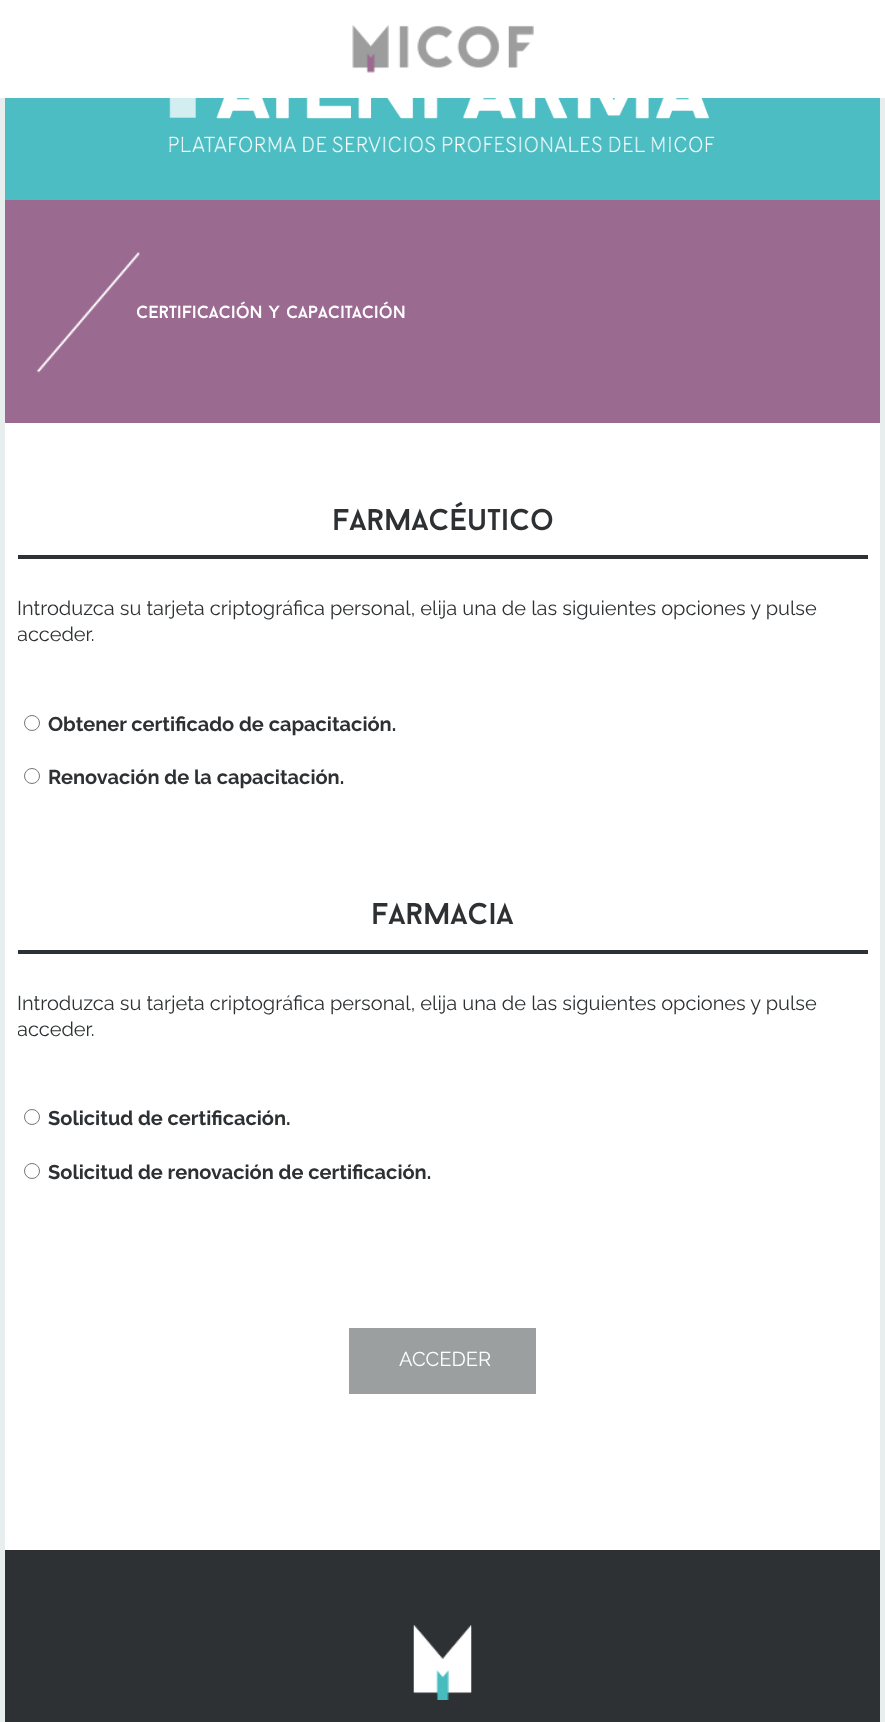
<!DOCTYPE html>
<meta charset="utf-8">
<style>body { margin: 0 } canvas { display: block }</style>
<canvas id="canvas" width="885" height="1722"></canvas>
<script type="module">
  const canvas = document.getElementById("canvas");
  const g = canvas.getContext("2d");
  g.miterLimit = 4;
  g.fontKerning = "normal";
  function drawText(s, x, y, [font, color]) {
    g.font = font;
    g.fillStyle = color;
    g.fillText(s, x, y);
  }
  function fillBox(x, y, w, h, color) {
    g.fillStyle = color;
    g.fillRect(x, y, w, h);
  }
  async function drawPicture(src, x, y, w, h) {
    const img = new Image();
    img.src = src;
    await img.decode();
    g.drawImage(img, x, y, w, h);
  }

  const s1 = ["17.5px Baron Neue", "#FFFFFF"];
  const s2 = ["30px Baron Neue", "#2E3133"];
  const s3 = ["20px Raleway", "#2E3133"];
  const s4 = ["bold 20px Raleway", "#2E3133"];
  const s5 = ["20px Raleway", "#FFFFFF"];

  fillBox(0, 0, 885, 1722, "#E8EDEE");
  fillBox(0, 0, 885, 98, "#FFFFFF");
  await drawPicture("pic1.png", 352, 25, 182, 48);
  fillBox(5, 98, 875, 102, "#4CBDC2");
  await drawPicture("pic2.png", 168, 98, 547, 55);
  fillBox(5, 423, 875, 1127, "#FFFFFF");
  fillBox(5, 200, 875, 223, "#9B6A91");
  await drawPicture("pic3.png", 36, 252, 104, 121);
  drawText("certificación y capacitación", 136, 318, s1);
  fillBox(18, 555, 850, 4, "#2E3133");
  drawText("farmacéutico", 332, 530, s2);
  drawText("Introduzca su tarjeta criptográfica personal, elija una de las siguientes opciones y pulse", 17, 615, s3);
  g.save();
  g.beginPath();
  g.rect(18, 423, 850, 971);
  g.clip();
  drawText("acceder.", 17, 641, s3);
  g.restore();
  g.beginPath();
  g.arc(32, 723, 7.5, 0, Math.PI * 2);
  g.strokeStyle = "#767676";
  g.stroke();
  drawText("Obtener certificado de capacitación.", 48, 731, s4);
  g.beginPath();
  g.arc(32, 776, 7.5, 0, Math.PI * 2);
  g.stroke();
  drawText("Renovación de la capacitación.", 48, 784, s4);
  fillBox(18, 950, 850, 4, "#2E3133");
  drawText("farmacia", 371, 924, s2);
  drawText("Introduzca su tarjeta criptográfica personal, elija una de las siguientes opciones y pulse", 17, 1010, s3);
  g.save();
  g.beginPath();
  g.rect(18, 423, 850, 971);
  g.clip();
  drawText("acceder.", 17, 1036, s3);
  g.restore();
  g.beginPath();
  g.arc(32, 1117, 7.5, 0, Math.PI * 2);
  g.stroke();
  drawText("Solicitud de certificación.", 48, 1125, s4);
  g.beginPath();
  g.arc(32, 1171, 7.5, 0, Math.PI * 2);
  g.stroke();
  drawText("Solicitud de renovación de certificación.", 48, 1179, s4);
  fillBox(349, 1328, 187, 66, "#9B9F9F");
  drawText("ACCEDER", 399, 1366, s5);
  fillBox(5, 1550, 875, 172, "#2E3133");
  await drawPicture("pic4.png", 413, 1625, 59, 75);
</script>
